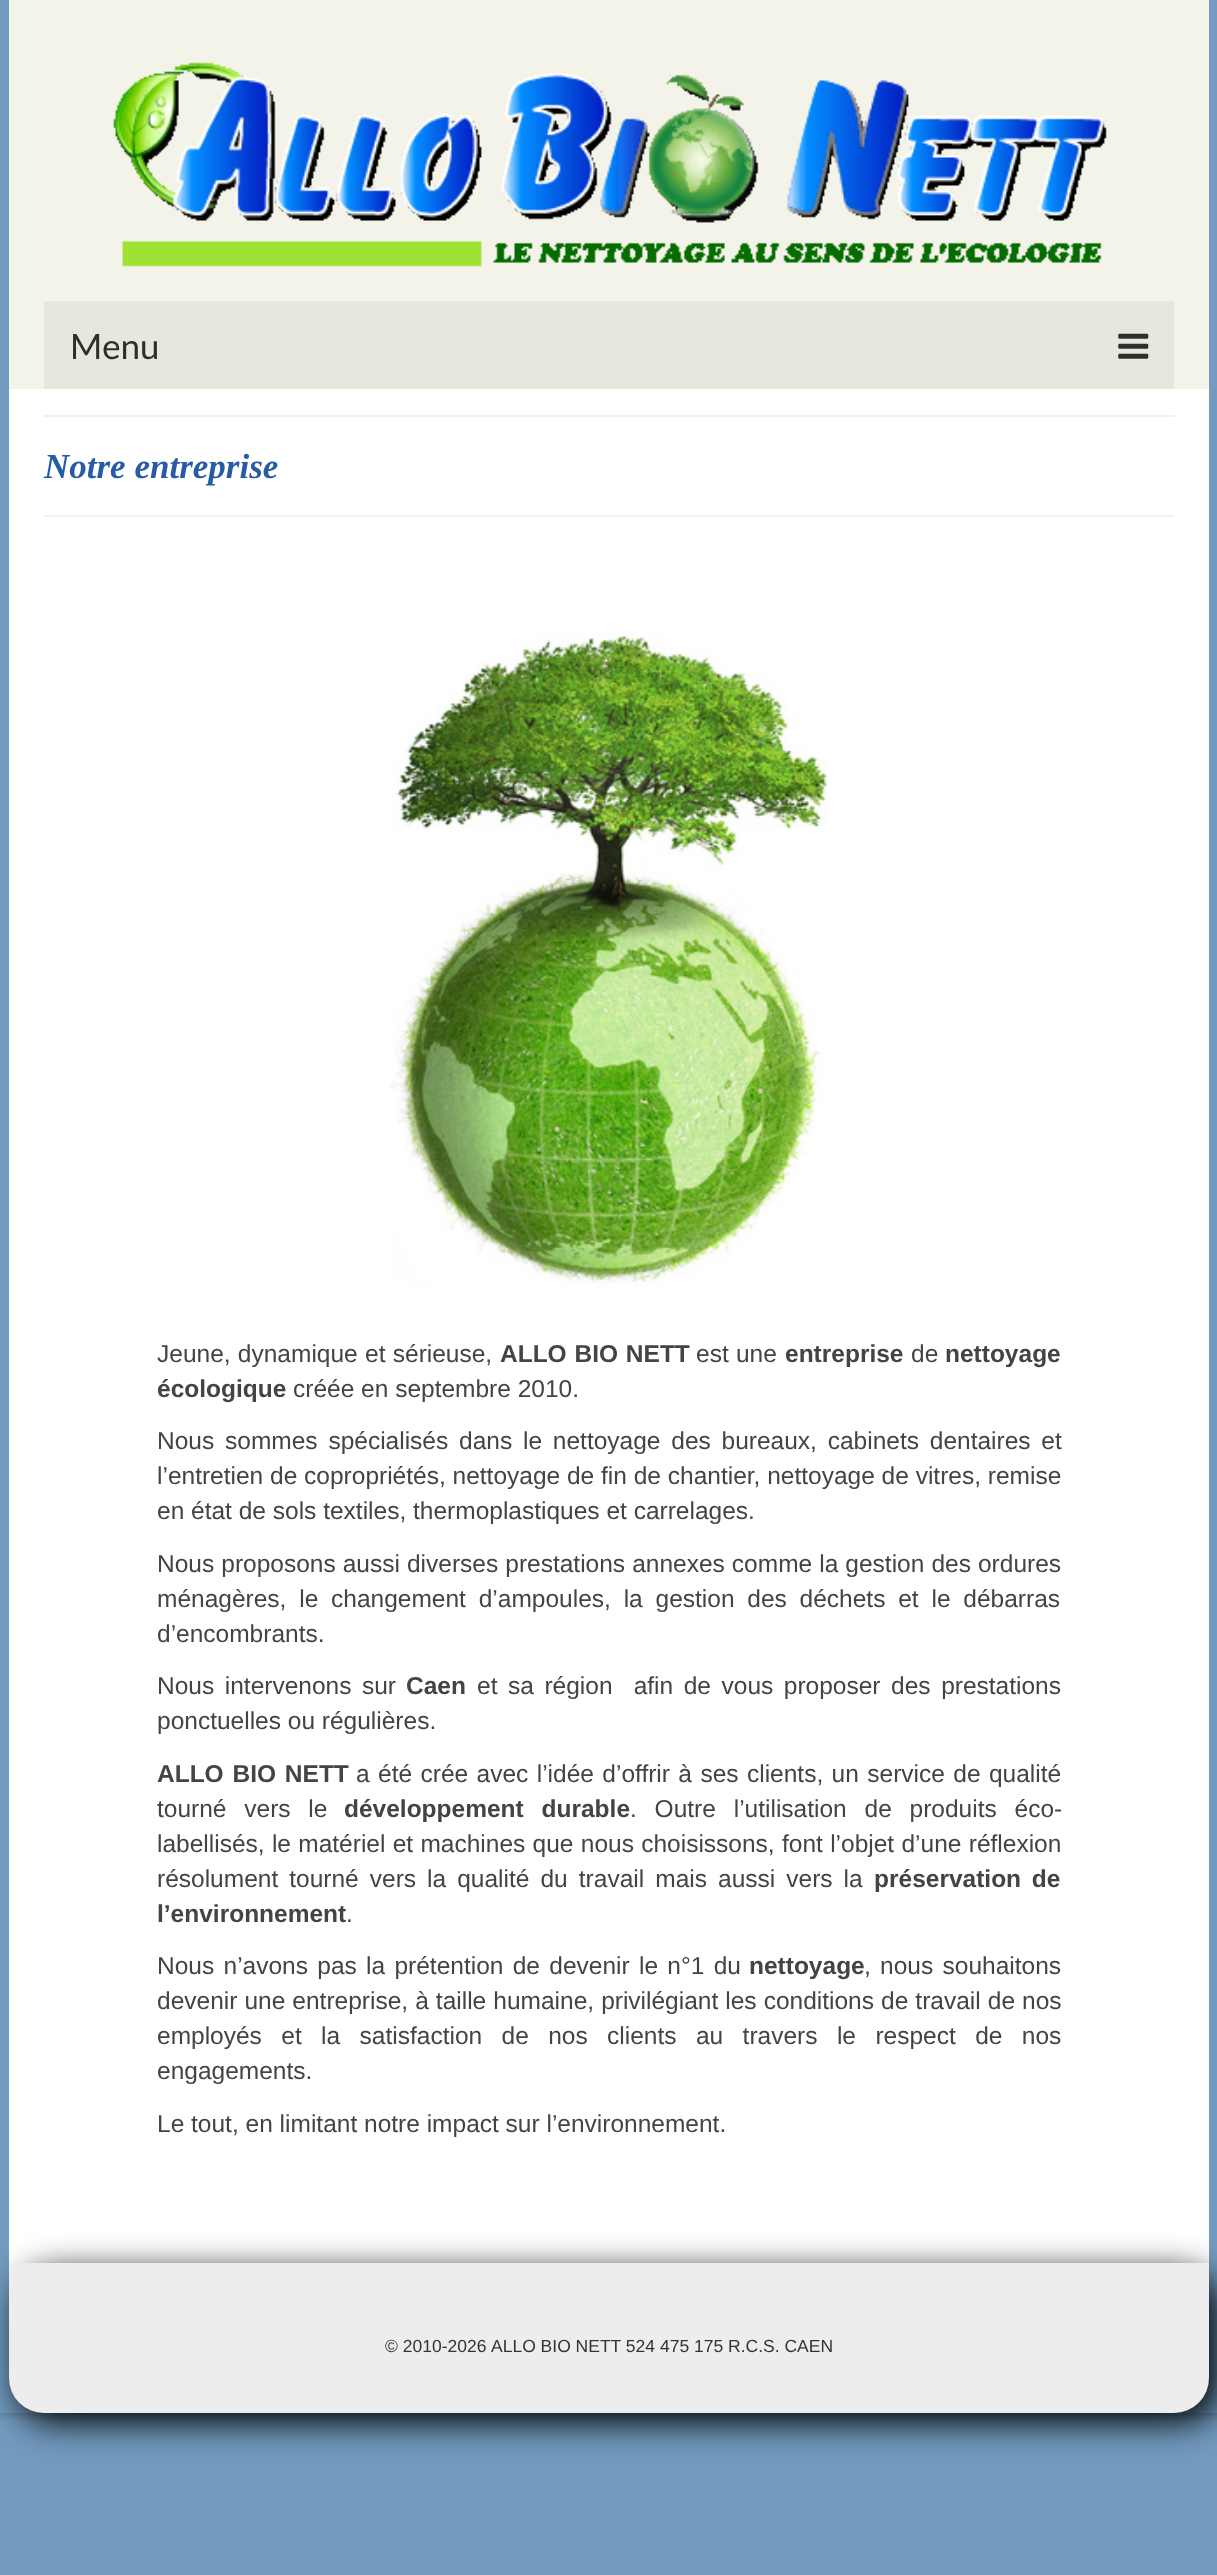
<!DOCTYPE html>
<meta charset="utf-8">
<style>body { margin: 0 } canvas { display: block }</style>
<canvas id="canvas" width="1217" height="2575"></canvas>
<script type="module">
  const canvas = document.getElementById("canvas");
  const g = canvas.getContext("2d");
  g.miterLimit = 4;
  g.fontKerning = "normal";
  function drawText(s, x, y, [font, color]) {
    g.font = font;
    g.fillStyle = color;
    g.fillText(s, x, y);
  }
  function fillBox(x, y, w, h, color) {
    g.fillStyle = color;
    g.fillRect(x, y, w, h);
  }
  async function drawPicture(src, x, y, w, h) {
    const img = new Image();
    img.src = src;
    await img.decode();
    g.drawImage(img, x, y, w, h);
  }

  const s1 = ["35px Lato", "#2E2E2C"];
  const s2 = ["italic bold 35px Liberation Serif", "#275CA5"];
  const s3 = ["24.5px Liberation Sans", "#444444"];
  const s4 = ["bold 24.5px Liberation Sans", "#444444"];
  const s5 = ["17.5px Liberation Sans", "#333333"];

  fillBox(0, 0, 1217, 2575, "#729BBF");
  g.save();
  g.beginPath();
  g.rect(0, 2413, 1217, 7);
  g.clip();
  g.fillStyle = "rgba(0, 0, 0, 0.16)";
  g.filter = "blur(4.5px)";
  g.beginPath();
  g.rect(-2, -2, 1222, 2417);
  g.fill();
  g.filter = "none";
  g.restore();
  fillBox(9, 0, 1200, 389, "#F4F3E9");
  await drawPicture("pic1.png", 113, 62, 994, 205);
  fillBox(44, 301, 1130, 88, "#E8E7DD");
  drawText("Menu", 70, 359, s1);
  await drawPicture("pic2.png", 1118, 333, 31, 26);
  fillBox(9, 389, 1200, 1874, "#FFFFFF");
  fillBox(44, 415, 1130, 2, "#F2F2F2");
  fillBox(44, 515, 1130, 2, "#F2F2F2");
  drawText("Notre entreprise", 44, 478, s2);
  await drawPicture("pic3.png", 389, 632, 439, 658);
  g.wordSpacing = "0.5px";
  drawText("Jeune, dynamique et sérieuse,", 157, 1362, s3);
  g.wordSpacing = "1px";
  drawText("ALLO BIO NETT", 500, 1362, s4);
  g.wordSpacing = "0.5px";
  drawText("est une", 696, 1362, s3);
  g.wordSpacing = "0px";
  drawText("entreprise", 785, 1362, s4);
  drawText("de", 911, 1362, s3);
  drawText("nettoyage", 945, 1362, s4);
  drawText("écologique", 157, 1397, s4);
  drawText("créée en septembre 2010.", 293, 1397, s3);
  g.wordSpacing = "4px";
  drawText("Nous sommes spécialisés dans le nettoyage des bureaux, cabinets dentaires et", 157, 1449, s3);
  g.wordSpacing = "0px";
  drawText("l’entretien de copropriétés, nettoyage de fin de chantier, nettoyage de vitres, remise", 157, 1484, s3);
  drawText("en état de sols textiles, thermoplastiques et carrelages.", 157, 1519, s3);
  g.wordSpacing = "0.25px";
  drawText("Nous proposons aussi diverses prestations annexes comme la gestion des ordures", 157, 1572, s3);
  g.wordSpacing = "6px";
  drawText("ménagères, le changement d’ampoules, la gestion des déchets et le débarras", 157, 1607, s3);
  g.wordSpacing = "0px";
  drawText("d’encombrants.", 157, 1642, s3);
  g.wordSpacing = "3.75px";
  drawText("Nous intervenons sur", 157, 1694, s3);
  g.wordSpacing = "0px";
  drawText("Caen", 406, 1694, s4);
  g.wordSpacing = "3.75px";
  drawText("et sa région  afin de vous proposer des prestations", 477, 1694, s3);
  g.wordSpacing = "0px";
  drawText("ponctuelles ou régulières.", 157, 1729, s3);
  g.wordSpacing = "2px";
  drawText("ALLO BIO NETT", 157, 1782, s4);
  g.wordSpacing = "1.6px";
  drawText("a été crée avec l’idée d’offrir à ses clients, un service de qualité", 356, 1782, s3);
  g.wordSpacing = "11px";
  drawText("tourné vers le", 157, 1817, s3);
  drawText("développement durable", 344, 1817, s4);
  drawText(". Outre l’utilisation de produits éco-", 630, 1817, s3);
  g.wordSpacing = "0.5px";
  drawText("labellisés, le matériel et machines que nous choisissons, font l’objet d’une réflexion", 157, 1852, s3);
  g.wordSpacing = "4.25px";
  drawText("résolument tourné vers la qualité du travail mais aussi vers la", 157, 1887, s3);
  g.wordSpacing = "4px";
  drawText("préservation de", 874, 1887, s4);
  g.wordSpacing = "0px";
  drawText("l’environnement", 157, 1922, s4);
  drawText(".", 346, 1922, s3);
  g.wordSpacing = "2.5px";
  drawText("Nous n’avons pas la prétention de devenir le n°1 du", 157, 1974, s3);
  g.wordSpacing = "0px";
  drawText("nettoyage", 749, 1974, s4);
  g.wordSpacing = "2.5px";
  drawText(", nous souhaitons", 864, 1974, s3);
  g.wordSpacing = "0.25px";
  drawText("devenir une entreprise, à taille humaine, privilégiant les conditions de travail de nos", 157, 2009, s3);
  g.wordSpacing = "12.6px";
  drawText("employés et la satisfaction de nos clients au travers le respect de nos", 157, 2044, s3);
  g.wordSpacing = "0px";
  drawText("engagements.", 157, 2079, s3);
  drawText("Le tout, en limitant notre impact sur l’environnement.", 157, 2132, s3);
  g.fillStyle = "#000000";
  g.filter = "blur(17.5px)";
  g.beginPath();
  g.roundRect(18, 2272, 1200, 150, 35);
  g.fill();
  g.filter = "none";
  g.fillStyle = "#EDEDED";
  g.beginPath();
  g.roundRect(9, 2263, 1200, 150, [0, 0, 35, 35]);
  g.fill();
  drawText("© 2010-2026", 385, 2352, s5);
  drawText("ALLO BIO NETT 524 475 175 R.C.S. CAEN", 491, 2352, s5);
</script>
